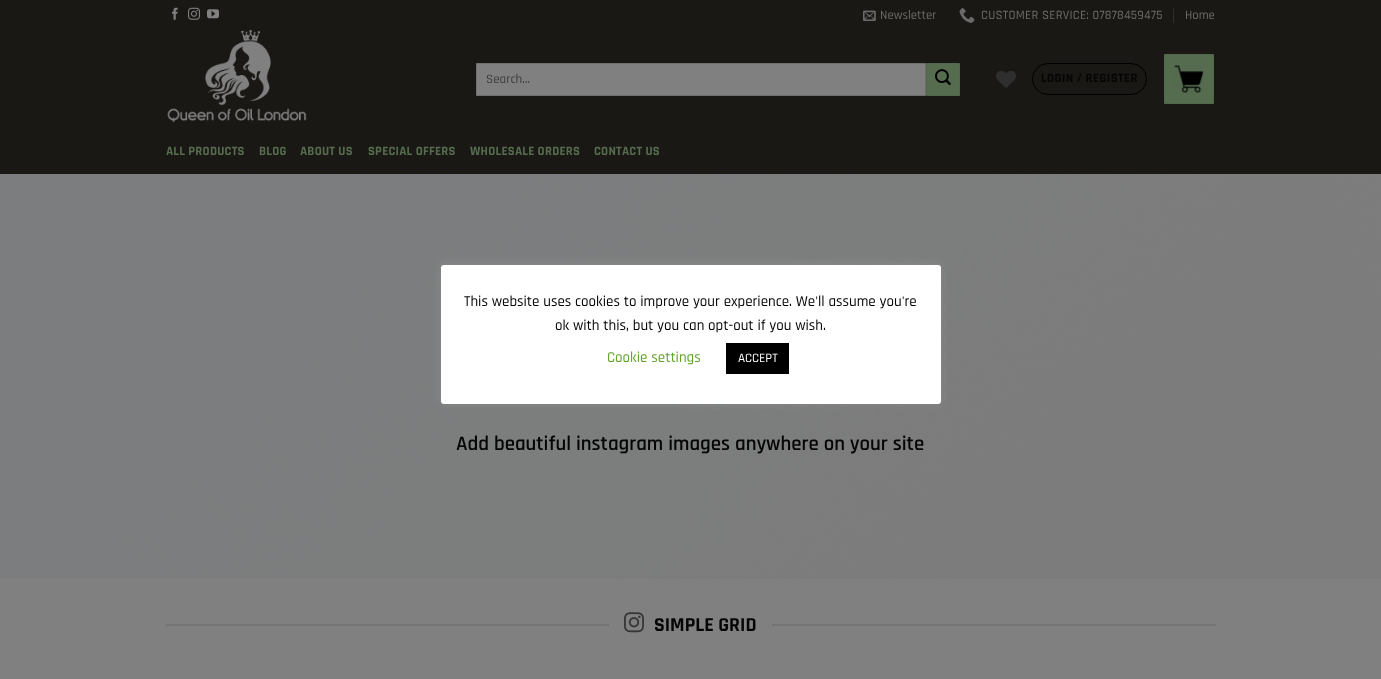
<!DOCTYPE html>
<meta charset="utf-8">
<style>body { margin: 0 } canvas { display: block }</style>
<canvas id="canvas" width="1381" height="679"></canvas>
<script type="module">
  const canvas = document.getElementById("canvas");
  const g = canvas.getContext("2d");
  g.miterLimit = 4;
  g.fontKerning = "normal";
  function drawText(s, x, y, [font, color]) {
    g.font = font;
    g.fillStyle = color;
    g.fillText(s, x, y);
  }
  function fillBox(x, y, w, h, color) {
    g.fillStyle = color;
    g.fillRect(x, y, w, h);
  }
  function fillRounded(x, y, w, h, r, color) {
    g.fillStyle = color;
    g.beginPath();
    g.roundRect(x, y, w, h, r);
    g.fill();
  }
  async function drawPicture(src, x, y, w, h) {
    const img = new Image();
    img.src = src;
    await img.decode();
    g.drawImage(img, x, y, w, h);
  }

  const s1 = ["500 12.75px Rajdhani", "#6B6B6A"];
  const s2 = ["500 13px Rajdhani", "#3B3B3B"];
  const s3 = ["bold 12.75px Rajdhani", "#050505"];
  const s4 = ["bold 12.75px Rajdhani", "#566C4F"];
  const s5 = ["600 20.8px Rajdhani", "#050505"];
  const s6 = ["bold 20px Rajdhani", "#050505"];
  const s7 = ["500 15px Rajdhani", "#050505"];
  const s8 = ["500 15px Rajdhani", "#62A329"];
  const s9 = ["500 13px Rajdhani", "#FFFFFF"];

  fillBox(0, 0, 1381, 679, "#808080");
  fillBox(0, 0, 1381, 174, "#1A1815");
  await drawPicture("pic1.png", 172, 7, 6, 13);
  await drawPicture("pic2.png", 188, 7, 12, 13);
  await drawPicture("pic3.png", 207, 9, 12, 10);
  await drawPicture("pic4.png", 863, 10, 13, 11);
  drawText("Newsletter", 880, 19, s1);
  await drawPicture("pic5.png", 959, 8, 16, 15);
  g.letterSpacing = "0.25px";
  drawText("CUSTOMER SERVICE: 07878459475", 981, 19, s1);
  fillBox(1173, 8, 1, 15, "#2E2D2B");
  g.letterSpacing = "0px";
  drawText("Home", 1185, 19, s1);
  await drawPicture("pic6.png", 167, 30, 140, 93);
  g.fillStyle = "#808080";
  g.beginPath();
  g.rect(476.5, 63.5, 449, 32);
  g.fill();
  g.strokeStyle = "#6F6F6F";
  g.stroke();
  drawText("Search…", 486, 83, s2);
  g.fillStyle = "#566C4F";
  g.beginPath();
  g.rect(926.5, 63.5, 33, 32);
  g.fill();
  g.strokeStyle = "#51664B";
  g.stroke();
  await drawPicture("pic7.png", 935, 69, 16, 16);
  await drawPicture("pic8.png", 996, 70, 20, 18);
  g.beginPath();
  g.roundRect(1032.5, 63.5, 114, 31, 15.5);
  g.strokeStyle = "#000000";
  g.stroke();
  g.letterSpacing = "0.4px";
  drawText("LOGIN / REGISTER", 1041, 82, s3);
  g.fillStyle = "#566C4F";
  g.beginPath();
  g.rect(1164.5, 54.5, 49, 49);
  g.fill();
  g.strokeStyle = "#51664B";
  g.stroke();
  await drawPicture("pic9.png", 1174, 65, 30, 28);
  g.letterSpacing = "0.25px";
  drawText("ALL PRODUCTS", 166, 155, s4);
  drawText("BLOG", 259, 155, s4);
  drawText("ABOUT US", 300, 155, s4);
  drawText("SPECIAL OFFERS", 368, 155, s4);
  drawText("WHOLESALE ORDERS", 470, 155, s4);
  drawText("CONTACT US", 594, 155, s4);
  await drawPicture("pic10.png", 0, 174, 1381, 405);
  g.letterSpacing = "0px";
  drawText("Add beautiful instagram images anywhere on your site", 456, 450, s5);
  fillBox(166, 624, 443, 2, "#747474");
  await drawPicture("pic11.png", 624, 612, 20, 21);
  drawText("SIMPLE GRID", 654, 631, s6);
  fillBox(772, 624, 444, 2, "#747474");
  g.fillStyle = "rgba(172, 171, 171, 0.3)";
  g.filter = "blur(5px)";
  g.beginPath();
  g.roundRect(441, 264, 500, 139, 3);
  g.fill();
  g.filter = "none";
  fillRounded(441, 265, 500, 139, 3, "#FFFFFF");
  drawText("This website uses cookies to improve your experience. We'll assume you're", 464, 306, s7);
  drawText("ok with this, but you can opt-out if you wish.", 555, 330, s7);
  drawText("Cookie settings", 607, 362, s8);
  fillBox(726, 343, 63, 31, "#000000");
  drawText("ACCEPT", 738, 362, s9);
</script>
